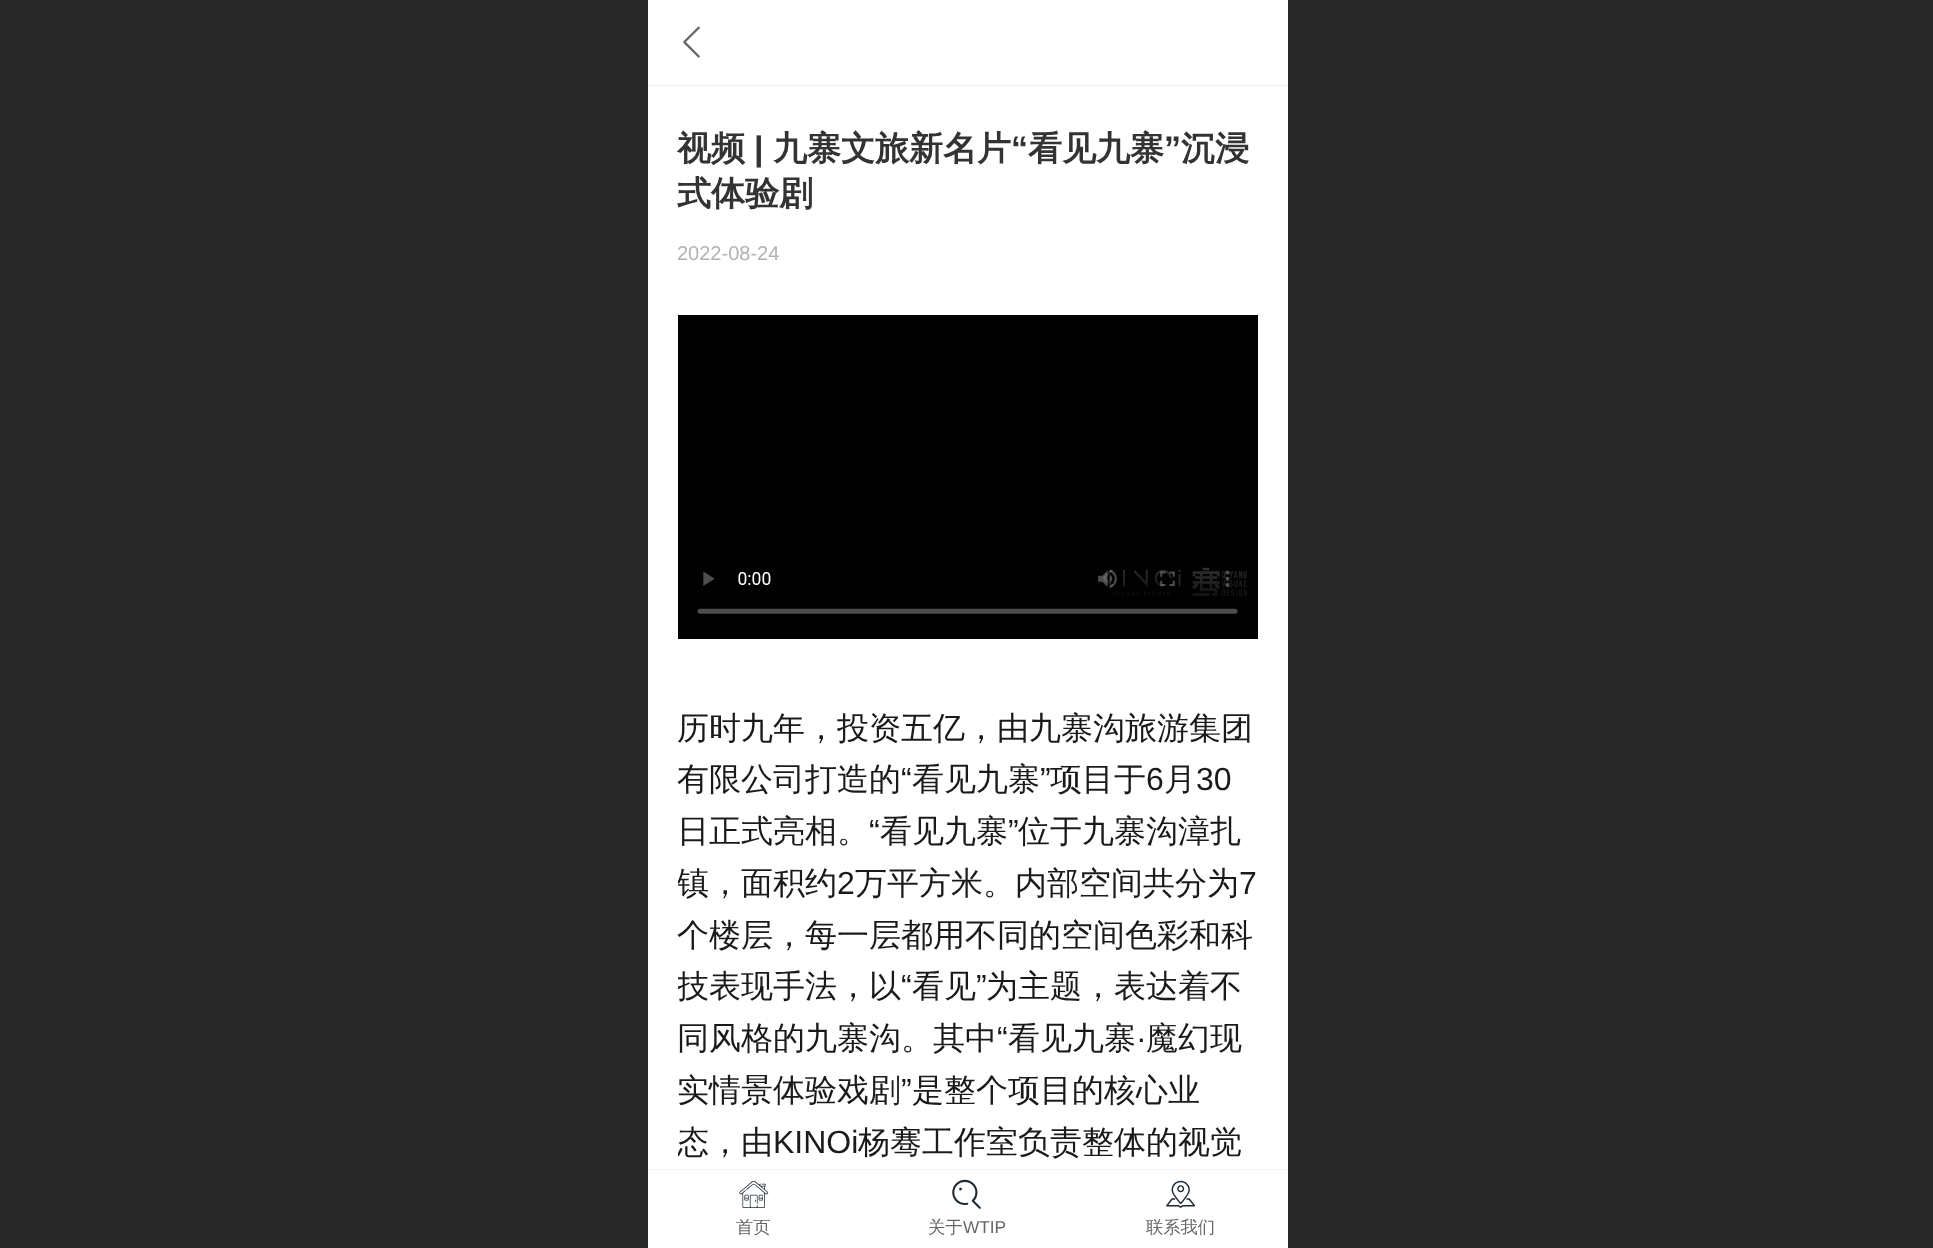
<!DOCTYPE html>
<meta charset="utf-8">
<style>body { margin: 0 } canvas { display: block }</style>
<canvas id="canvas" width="1933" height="1248"></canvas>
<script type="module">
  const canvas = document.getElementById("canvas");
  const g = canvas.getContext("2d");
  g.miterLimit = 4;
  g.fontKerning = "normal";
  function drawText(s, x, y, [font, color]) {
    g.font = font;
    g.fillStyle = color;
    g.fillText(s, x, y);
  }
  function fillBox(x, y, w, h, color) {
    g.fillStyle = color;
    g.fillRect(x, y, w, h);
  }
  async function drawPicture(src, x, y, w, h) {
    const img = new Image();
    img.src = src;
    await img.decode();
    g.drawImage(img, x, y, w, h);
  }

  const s1 = ["31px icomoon", "#666666"];
  const s2 = ["bold 34px WenQuanYi Zen Hei", "#333333"];
  const s3 = ["bold 34px Liberation Sans", "#333333"];
  const s4 = ["20px Liberation Sans", "#B3B3B3"];
  const s5 = ["500 32px WenQuanYi Zen Hei", "#1A1A1A"];
  const s6 = ["32px Liberation Sans", "#1A1A1A"];
  const s7 = ["29px icomoon", "#202B34"];
  const s8 = ["500 17.25px WenQuanYi Zen Hei", "#666666"];
  const s9 = ["17.25px Liberation Sans", "#666666"];

  fillBox(0, 0, 1933, 1248, "#FFFFFF");
  fillBox(0, 0, 648, 1248, "#282828");
  fillBox(648, 85, 640, 1, "#EEEEEE");
  drawText("򰊔", 676, 55, s1);
  drawText("视频", 677, 160, s2);
  drawText("|", 754, 160, s3);
  drawText("九寨文旅新名片", 773, 160, s2);
  drawText("“", 1011, 160, s3);
  drawText("看见九寨", 1028, 160, s2);
  drawText("”", 1164, 160, s3);
  drawText("沉浸", 1181, 160, s2);
  drawText("式体验剧", 677, 205, s2);
  drawText("2022-08-24", 677, 260, s4);
  fillBox(678, 315, 580, 324, "#000000");
  await drawPicture("pic1.png", 697, 567, 550, 47);
  drawText("历时九年，投资五亿，由九寨沟旅游集团", 677, 739, s5);
  drawText("有限公司打造的", 677, 790, s5);
  drawText("“", 901, 790, s6);
  drawText("看见九寨", 912, 790, s5);
  drawText("”", 1040, 790, s6);
  drawText("项目于", 1050, 790, s5);
  drawText("6", 1146, 790, s6);
  drawText("月", 1164, 790, s5);
  drawText("30", 1196, 790, s6);
  drawText("日正式亮相。", 677, 842, s5);
  drawText("“", 869, 842, s6);
  drawText("看见九寨", 880, 842, s5);
  drawText("”", 1008, 842, s6);
  drawText("位于九寨沟漳扎", 1018, 842, s5);
  g.save();
  g.beginPath();
  g.rect(678, 315, 580, 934);
  g.clip();
  drawText("镇，面积约", 677, 894, s5);
  g.restore();
  drawText("2", 837, 894, s6);
  drawText("万平方米。内部空间共分为", 855, 894, s5);
  drawText("7", 1239, 894, s6);
  drawText("个楼层，每一层都用不同的空间色彩和科", 677, 946, s5);
  g.save();
  g.beginPath();
  g.rect(678, 315, 580, 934);
  g.clip();
  drawText("技表现手法，以", 677, 997, s5);
  g.restore();
  drawText("“", 901, 997, s6);
  drawText("看见", 912, 997, s5);
  drawText("”", 976, 997, s6);
  drawText("为主题，表达着不", 986, 997, s5);
  drawText("同风格的九寨沟。其中", 677, 1049, s5);
  drawText("“", 997, 1049, s6);
  drawText("看见九寨", 1008, 1049, s5);
  drawText("魔幻现", 1146, 1049, s5);
  drawText("·", 1136, 1049, s6);
  drawText("实情景体验戏剧", 677, 1101, s5);
  drawText("”", 901, 1101, s6);
  drawText("是整个项目的核心业", 912, 1101, s5);
  g.save();
  g.beginPath();
  g.rect(678, 315, 580, 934);
  g.clip();
  drawText("态，由", 677, 1153, s5);
  g.restore();
  drawText("KINOi", 773, 1153, s6);
  drawText("杨骞工作室负责整体的视觉", 858, 1153, s5);
  fillBox(648, 1169, 640, 1, "#F4F4F4");
  drawText("򠥠", 739, 1207, s7);
  drawText("首页", 736, 1233, s8);
  drawText("򠡳", 952, 1207, s7);
  drawText("关于", 928, 1233, s8);
  drawText("WTIP", 963, 1233, s9);
  drawText("򠄁", 1166, 1207, s7);
  drawText("联系我们", 1146, 1233, s8);
  fillBox(1288, 0, 645, 1248, "#282828");
</script>
